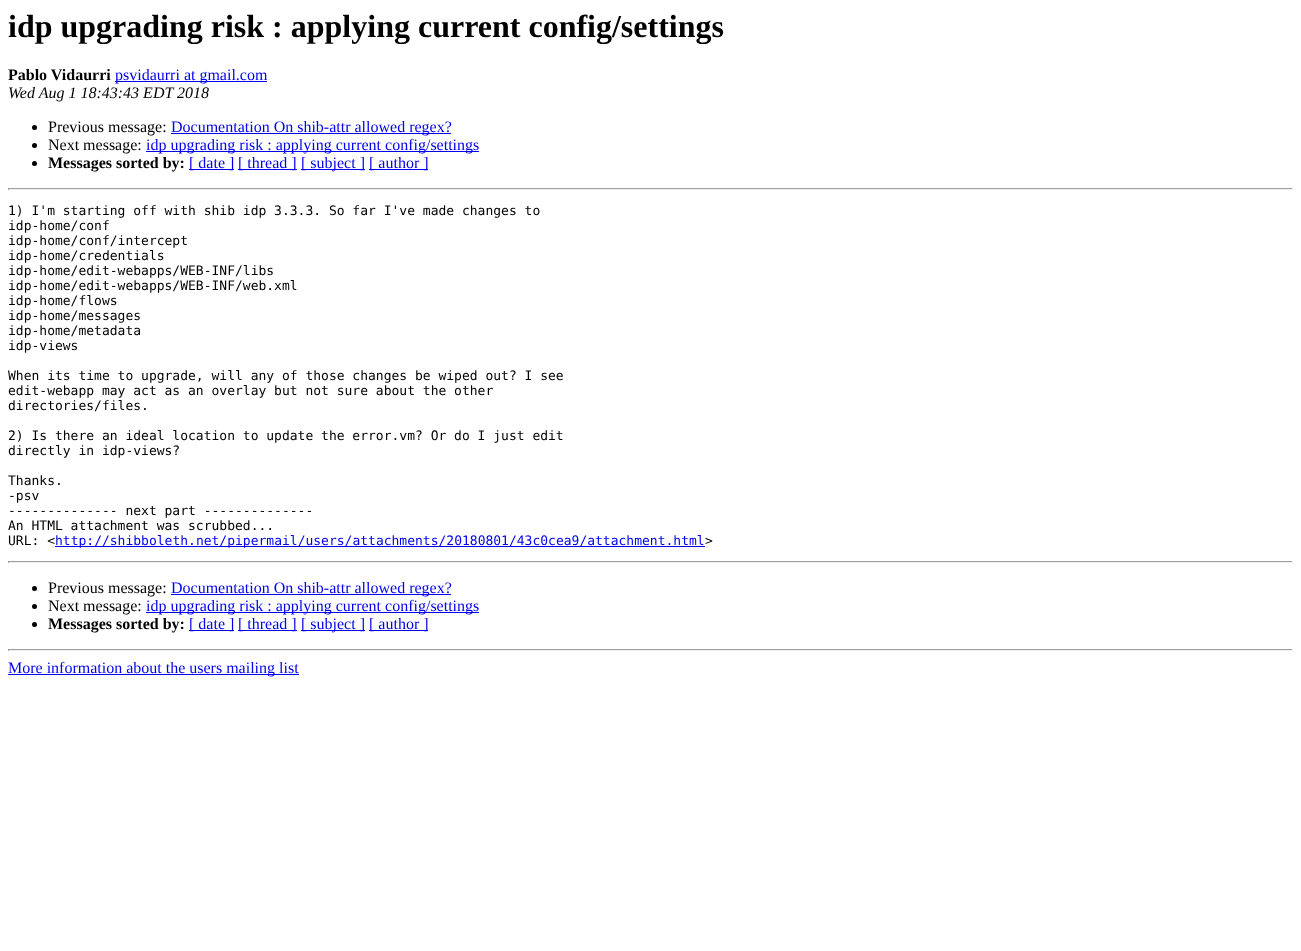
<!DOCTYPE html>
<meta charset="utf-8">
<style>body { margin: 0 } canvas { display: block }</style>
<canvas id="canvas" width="1301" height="951"></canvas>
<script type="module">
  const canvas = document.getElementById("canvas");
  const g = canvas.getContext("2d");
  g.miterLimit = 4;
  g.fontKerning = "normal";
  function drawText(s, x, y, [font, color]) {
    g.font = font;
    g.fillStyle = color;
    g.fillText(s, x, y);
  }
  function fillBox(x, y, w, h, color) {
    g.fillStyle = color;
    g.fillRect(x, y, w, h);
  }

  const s1 = ["bold 32px Liberation Serif", "#000000"];
  const s2 = ["bold 16px Liberation Serif", "#000000"];
  const s3 = ["16px Liberation Serif", "#0000EE"];
  const s4 = ["italic 16px Liberation Serif", "#000000"];
  const s5 = ["16px Liberation Serif", "#000000"];
  const s6 = ["13px DejaVu Sans Mono", "#000000"];
  const s7 = ["13px DejaVu Sans Mono", "#0000EE"];

  fillBox(0, 0, 1301, 951, "#FFFFFF");
  drawText("idp upgrading risk : applying current config/settings", 8, 37, s1);
  drawText("Pablo Vidaurri", 8, 80, s2);
  fillBox(115, 81, 152, 1, "#0000EE");
  drawText("psvidaurri at gmail.com", 115, 80, s3);
  drawText("Wed Aug 1 18:43:43 EDT 2018", 8, 98, s4);
  g.beginPath();
  g.arc(34.5, 127.5, 2.5, 0, Math.PI * 2);
  g.fill();
  drawText("Previous message:", 48, 132, s5);
  fillBox(171, 133, 280, 1, "#0000EE");
  drawText("Documentation On shib-attr allowed regex?", 171, 132, s3);
  g.fillStyle = "#000000";
  g.beginPath();
  g.arc(34.5, 145.5, 2.5, 0, Math.PI * 2);
  g.fill();
  drawText("Next message:", 48, 150, s5);
  fillBox(146, 151, 333, 1, "#0000EE");
  drawText("idp upgrading risk : applying current config/settings", 146, 150, s3);
  g.fillStyle = "#000000";
  g.beginPath();
  g.arc(34.5, 163.5, 2.5, 0, Math.PI * 2);
  g.fill();
  drawText("Messages sorted by:", 48, 168, s2);
  fillBox(189, 169, 45, 1, "#0000EE");
  drawText("[ date ]", 189, 168, s3);
  fillBox(238, 169, 59, 1, "#0000EE");
  drawText("[ thread ]", 238, 168, s3);
  fillBox(301, 169, 64, 1, "#0000EE");
  drawText("[ subject ]", 301, 168, s3);
  fillBox(369, 169, 59, 1, "#0000EE");
  drawText("[ author ]", 369, 168, s3);
  fillBox(8, 188, 1285, 1, "#9F9F9F");
  fillBox(1292, 188, 1, 2, "#EEEEEE");
  fillBox(8, 189, 1285, 1, "#EEEEEE");
  fillBox(8, 188, 1, 2, "#9F9F9F");
  drawText("1) I'm starting off with shib idp 3.3.3. So far I've made changes to", 8, 215, s6);
  drawText("idp-home/conf", 8, 230, s6);
  drawText("idp-home/conf/intercept", 8, 245, s6);
  drawText("idp-home/credentials", 8, 260, s6);
  drawText("idp-home/edit-webapps/WEB-INF/libs", 8, 275, s6);
  drawText("idp-home/edit-webapps/WEB-INF/web.xml", 8, 290, s6);
  drawText("idp-home/flows", 8, 305, s6);
  drawText("idp-home/messages", 8, 320, s6);
  drawText("idp-home/metadata", 8, 335, s6);
  drawText("idp-views", 8, 350, s6);
  drawText("When its time to upgrade, will any of those changes be wiped out? I see", 8, 380, s6);
  drawText("edit-webapp may act as an overlay but not sure about the other", 8, 395, s6);
  drawText("directories/files.", 8, 410, s6);
  drawText("2) Is there an ideal location to update the error.vm? Or do I just edit", 8, 440, s6);
  drawText("directly in idp-views?", 8, 455, s6);
  drawText("Thanks.", 8, 485, s6);
  drawText("-psv", 8, 500, s6);
  drawText("-------------- next part --------------", 8, 515, s6);
  drawText("An HTML attachment was scrubbed...", 8, 530, s6);
  drawText("URL: <", 8, 545, s6);
  fillBox(55, 546, 650, 1, "#0000EE");
  drawText("http://shibboleth.net/pipermail/users/attachments/20180801/43c0cea9/attachment.html", 55, 545, s7);
  drawText(">", 705, 545, s6);
  fillBox(8, 561, 1285, 1, "#9F9F9F");
  fillBox(1292, 561, 1, 2, "#EEEEEE");
  fillBox(8, 562, 1285, 1, "#EEEEEE");
  fillBox(8, 561, 1, 2, "#9F9F9F");
  g.fillStyle = "#000000";
  g.beginPath();
  g.arc(34.5, 588.5, 2.5, 0, Math.PI * 2);
  g.fill();
  drawText("Previous message:", 48, 593, s5);
  fillBox(171, 594, 280, 1, "#0000EE");
  drawText("Documentation On shib-attr allowed regex?", 171, 593, s3);
  g.fillStyle = "#000000";
  g.beginPath();
  g.arc(34.5, 606.5, 2.5, 0, Math.PI * 2);
  g.fill();
  drawText("Next message:", 48, 611, s5);
  fillBox(146, 612, 333, 1, "#0000EE");
  drawText("idp upgrading risk : applying current config/settings", 146, 611, s3);
  g.fillStyle = "#000000";
  g.beginPath();
  g.arc(34.5, 624.5, 2.5, 0, Math.PI * 2);
  g.fill();
  drawText("Messages sorted by:", 48, 629, s2);
  fillBox(189, 630, 45, 1, "#0000EE");
  drawText("[ date ]", 189, 629, s3);
  fillBox(238, 630, 59, 1, "#0000EE");
  drawText("[ thread ]", 238, 629, s3);
  fillBox(301, 630, 64, 1, "#0000EE");
  drawText("[ subject ]", 301, 629, s3);
  fillBox(369, 630, 59, 1, "#0000EE");
  drawText("[ author ]", 369, 629, s3);
  fillBox(8, 649, 1285, 1, "#9F9F9F");
  fillBox(1292, 649, 1, 2, "#EEEEEE");
  fillBox(8, 650, 1285, 1, "#EEEEEE");
  fillBox(8, 649, 1, 2, "#9F9F9F");
  fillBox(8, 674, 291, 1, "#0000EE");
  drawText("More information about the users mailing list", 8, 673, s3);
</script>
